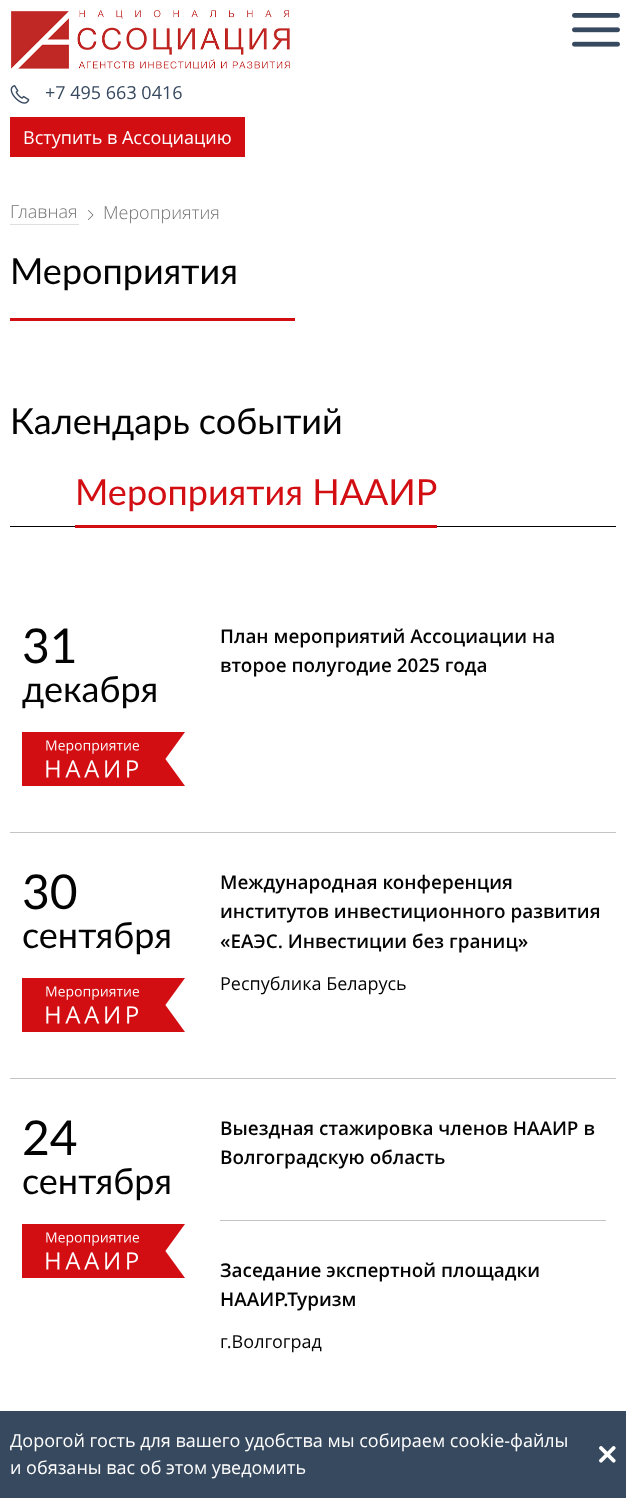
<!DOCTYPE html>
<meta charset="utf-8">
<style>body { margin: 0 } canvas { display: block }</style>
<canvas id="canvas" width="626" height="1498"></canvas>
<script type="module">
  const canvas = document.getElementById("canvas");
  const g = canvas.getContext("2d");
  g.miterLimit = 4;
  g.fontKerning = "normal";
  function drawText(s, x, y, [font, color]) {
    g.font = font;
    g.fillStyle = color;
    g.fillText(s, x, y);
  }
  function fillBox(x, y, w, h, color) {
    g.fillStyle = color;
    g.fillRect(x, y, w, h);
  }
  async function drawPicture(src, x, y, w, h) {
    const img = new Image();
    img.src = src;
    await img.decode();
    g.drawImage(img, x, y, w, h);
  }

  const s1 = ["18px Open Sans", "#37495F"];
  const s2 = ["18px Open Sans", "#FFFFFF"];
  const s3 = ["300 18px Open Sans", "#737373"];
  const s4 = ["36px Lato", "#030303"];
  const s5 = ["36px Lato", "#D20E13"];
  const s6 = ["48px Lato", "#030303"];
  const s7 = ["600 18.9px Open Sans", "#030303"];
  const s8 = ["18px Open Sans", "#030303"];

  fillBox(0, 0, 626, 1498, "#FFFFFF");
  await drawPicture("pic1.png", 572, 13, 48, 34);
  await drawPicture("pic2.png", 11, 10, 279, 59);
  await drawPicture("pic3.png", 10, 85, 20, 19);
  drawText("+7 495 663 0416", 45, 99, s1);
  fillBox(10, 117, 235, 40, "#D20E13");
  drawText("Вступить в Ассоциацию", 23, 144, s2);
  fillBox(10, 224, 69, 1, "#DFDFDF");
  drawText("Главная", 10, 218, s3);
  await drawPicture("pic4.png", 88, 210, 6, 10);
  drawText("Мероприятия", 103, 219, s3);
  drawText("Мероприятия", 10, 284, s4);
  fillBox(10, 318, 285, 3, "#D20E13");
  fillBox(10, 526, 606, 1, "#030303");
  drawText("Календарь событий", 10, 434, s4);
  fillBox(75, 525, 362, 3, "#D20E13");
  drawText("Мероприятия НААИР", 75, 505, s5);
  await drawPicture("pic5.png", 22, 732, 163, 54);
  drawText("31", 22, 663, s6);
  drawText("декабря", 22, 702, s4);
  drawText("План мероприятий Ассоциации на", 220, 643, s7);
  drawText("второе полугодие 2025 года", 220, 672, s7);
  fillBox(10, 832, 606, 1, "#C4C4C4");
  await drawPicture("pic5.png", 22, 978, 163, 54);
  drawText("30", 22, 909, s6);
  drawText("сентября", 22, 948, s4);
  drawText("Международная конференция", 220, 889, s7);
  drawText("институтов инвестиционного развития", 220, 918, s7);
  drawText("«ЕАЭС. Инвестиции без границ»", 220, 948, s7);
  drawText("Республика Беларусь", 220, 990, s8);
  fillBox(10, 1078, 606, 1, "#C4C4C4");
  await drawPicture("pic5.png", 22, 1224, 163, 54);
  drawText("24", 22, 1155, s6);
  drawText("сентября", 22, 1194, s4);
  drawText("Выездная стажировка членов НААИР в", 220, 1135, s7);
  drawText("Волгоградскую область", 220, 1164, s7);
  fillBox(220, 1220, 386, 1, "#C4C4C4");
  drawText("Заседание экспертной площадки", 220, 1277, s7);
  drawText("НААИР.Туризм", 220, 1306, s7);
  drawText("г.Волгоград", 220, 1348, s8);
  fillBox(0, 1411, 626, 87, "#37495F");
  await drawPicture("pic6.png", 599, 1446, 17, 17);
  drawText("Дорогой гость для вашего удобства мы собираем cookie-файлы", 10, 1447, s2);
  drawText("и обязаны вас об этом уведомить", 10, 1474, s2);
</script>
